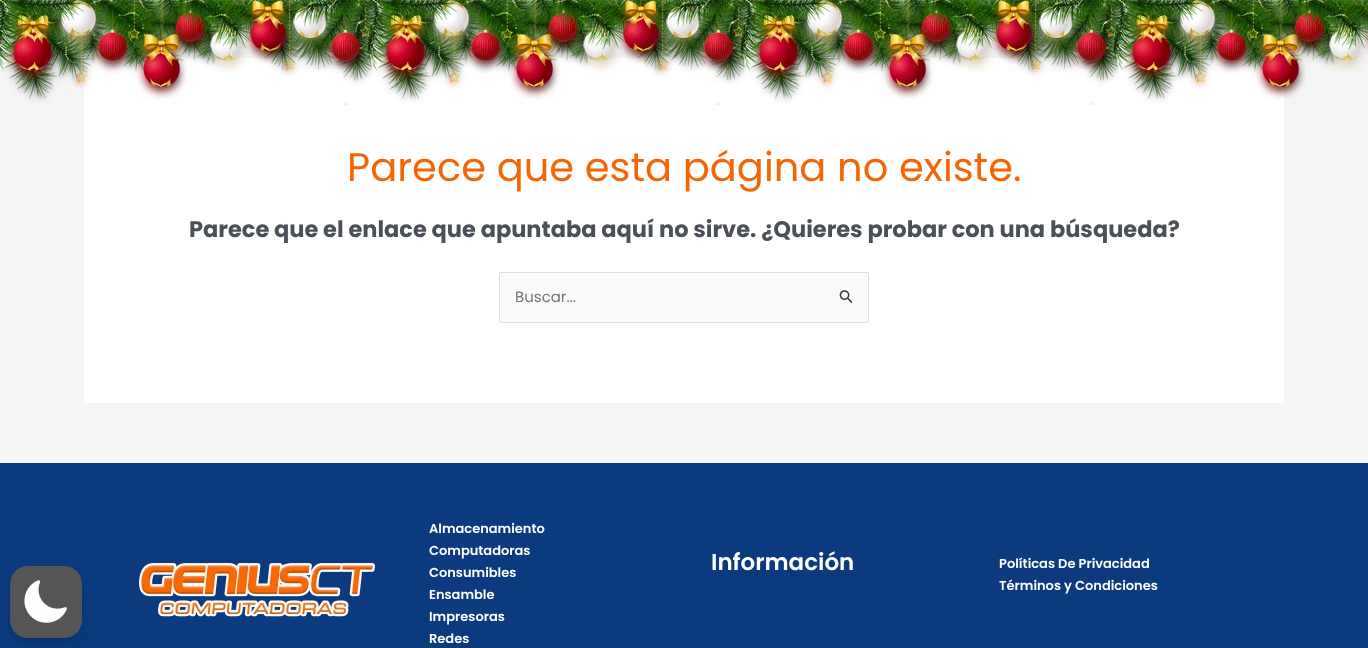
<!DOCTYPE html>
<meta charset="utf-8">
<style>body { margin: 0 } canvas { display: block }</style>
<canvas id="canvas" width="1368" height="648"></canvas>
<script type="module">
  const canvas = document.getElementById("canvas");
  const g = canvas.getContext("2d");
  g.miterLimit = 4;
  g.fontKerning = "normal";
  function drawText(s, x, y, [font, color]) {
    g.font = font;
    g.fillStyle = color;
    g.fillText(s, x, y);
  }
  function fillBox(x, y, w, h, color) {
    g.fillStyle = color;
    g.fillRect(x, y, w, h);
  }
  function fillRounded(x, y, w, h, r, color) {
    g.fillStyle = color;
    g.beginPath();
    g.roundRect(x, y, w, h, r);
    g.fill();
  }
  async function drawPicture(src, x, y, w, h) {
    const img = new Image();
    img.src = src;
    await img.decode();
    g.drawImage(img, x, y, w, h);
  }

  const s1 = ["40px Poppins", "#F66504"];
  const s2 = ["bold 22.5px Poppins", "#4B4F58"];
  const s3 = ["15px Poppins", "#757575"];
  const s4 = ["600 13px Poppins", "#FFFFFF"];
  const s5 = ["600 23px Poppins", "#FFFFFF"];

  fillBox(0, 0, 1368, 648, "#F5F5F5");
  fillBox(84, 58, 1200, 345, "#FFFFFF");
  await drawPicture("pic1.png", 0, 0, 1368, 105);
  await drawPicture("pic3.png", 6, 0, 52, 82);
  await drawPicture("pic2.png", 0, 0, 25, 71);
  await drawPicture("pic5.png", 54, 0, 49, 47);
  await drawPicture("pic4.png", 25, 0, 61, 27);
  await drawPicture("pic6.png", 136, 0, 51, 99);
  await drawPicture("pic7.png", 170, 0, 41, 54);
  await drawPicture("pic13.png", 204, 6, 45, 66);
  await drawPicture("pic8.png", 177, 0, 28, 31);
  await drawPicture("pic10.png", 243, 0, 49, 64);
  await drawPicture("pic9.png", 205, 0, 50, 50);
  await drawPicture("pic11.png", 287, 0, 46, 49);
  await drawPicture("pic12.png", 92, 9, 41, 64);
  await drawPicture("pic16.png", 325, 10, 41, 63);
  await drawPicture("pic14.png", 289, 0, 78, 28);
  await drawPicture("pic15.png", 367, 0, 6, 69);
  await drawPicture("pic18.png", 379, 0, 52, 82);
  await drawPicture("pic17.png", 373, 0, 25, 71);
  await drawPicture("pic5.png", 427, 0, 49, 47);
  await drawPicture("pic4.png", 398, 0, 61, 27);
  await drawPicture("pic6.png", 509, 0, 51, 99);
  await drawPicture("pic7.png", 543, 0, 41, 54);
  await drawPicture("pic13.png", 577, 6, 45, 66);
  await drawPicture("pic8.png", 550, 0, 28, 31);
  await drawPicture("pic10.png", 616, 0, 49, 64);
  await drawPicture("pic9.png", 578, 0, 50, 50);
  await drawPicture("pic11.png", 660, 0, 46, 49);
  await drawPicture("pic12.png", 465, 9, 41, 64);
  await drawPicture("pic16.png", 698, 10, 41, 63);
  await drawPicture("pic14.png", 662, 0, 78, 28);
  await drawPicture("pic15.png", 740, 0, 6, 69);
  await drawPicture("pic18.png", 752, 0, 52, 82);
  await drawPicture("pic17.png", 746, 0, 25, 71);
  await drawPicture("pic5.png", 800, 0, 49, 47);
  await drawPicture("pic4.png", 771, 0, 61, 27);
  await drawPicture("pic6.png", 882, 0, 51, 99);
  await drawPicture("pic7.png", 916, 0, 41, 54);
  await drawPicture("pic13.png", 950, 6, 45, 66);
  await drawPicture("pic8.png", 923, 0, 28, 31);
  await drawPicture("pic10.png", 989, 0, 49, 64);
  await drawPicture("pic9.png", 951, 0, 50, 50);
  await drawPicture("pic11.png", 1033, 0, 46, 49);
  await drawPicture("pic12.png", 838, 9, 41, 64);
  await drawPicture("pic16.png", 1071, 10, 41, 63);
  await drawPicture("pic14.png", 1035, 0, 78, 28);
  await drawPicture("pic15.png", 1113, 0, 6, 69);
  await drawPicture("pic18.png", 1125, 0, 52, 82);
  await drawPicture("pic17.png", 1119, 0, 25, 71);
  await drawPicture("pic5.png", 1173, 0, 49, 47);
  await drawPicture("pic4.png", 1144, 0, 61, 27);
  await drawPicture("pic19.png", 1255, 0, 51, 99);
  await drawPicture("pic7.png", 1289, 0, 41, 54);
  await drawPicture("pic22.png", 1323, 6, 45, 66);
  await drawPicture("pic8.png", 1296, 0, 28, 31);
  await drawPicture("pic21.png", 1362, 3, 6, 51);
  await drawPicture("pic20.png", 1324, 0, 44, 50);
  await drawPicture("pic12.png", 1211, 9, 41, 64);
  fillBox(0, 463, 1368, 185, "#0B3A7F");
  g.fillStyle = "rgba(0, 0, 0, 0.1)";
  g.filter = "blur(3px)";
  g.beginPath();
  g.roundRect(14, 574, 64, 64, 14);
  g.fill();
  g.filter = "none";
  g.filter = "blur(7.5px)";
  g.beginPath();
  g.roundRect(13, 579, 66, 66, 15);
  g.fill();
  g.filter = "none";
  fillRounded(10, 566, 72, 72, 18, "#555555");
  await drawPicture("pic23.png", 24, 580, 43, 43);
  drawText("Parece que esta página no existe.", 347, 181, s1);
  drawText("Parece que el enlace que apuntaba aquí no sirve. ¿Quieres probar con una búsqueda?", 189, 237, s2);
  g.fillStyle = "#FAFAFA";
  g.beginPath();
  g.roundRect(499.5, 272.5, 369, 50, 1.5);
  g.fill();
  g.strokeStyle = "#DDDDDD";
  g.stroke();
  drawText("Buscar...", 515, 302, s3);
  await drawPicture("pic24.png", 839, 290, 13, 14);
  await drawPicture("pic25.png", 139, 563, 236, 54);
  drawText("Almacenamiento", 429, 533, s4);
  drawText("Computadoras", 429, 555, s4);
  drawText("Consumibles", 429, 577, s4);
  drawText("Ensamble", 429, 599, s4);
  drawText("Impresoras", 429, 621, s4);
  drawText("Redes", 429, 643, s4);
  drawText("Información", 711, 570, s5);
  drawText("Políticas De Privacidad", 999, 568, s4);
  drawText("Términos y Condiciones", 999, 590, s4);
</script>
